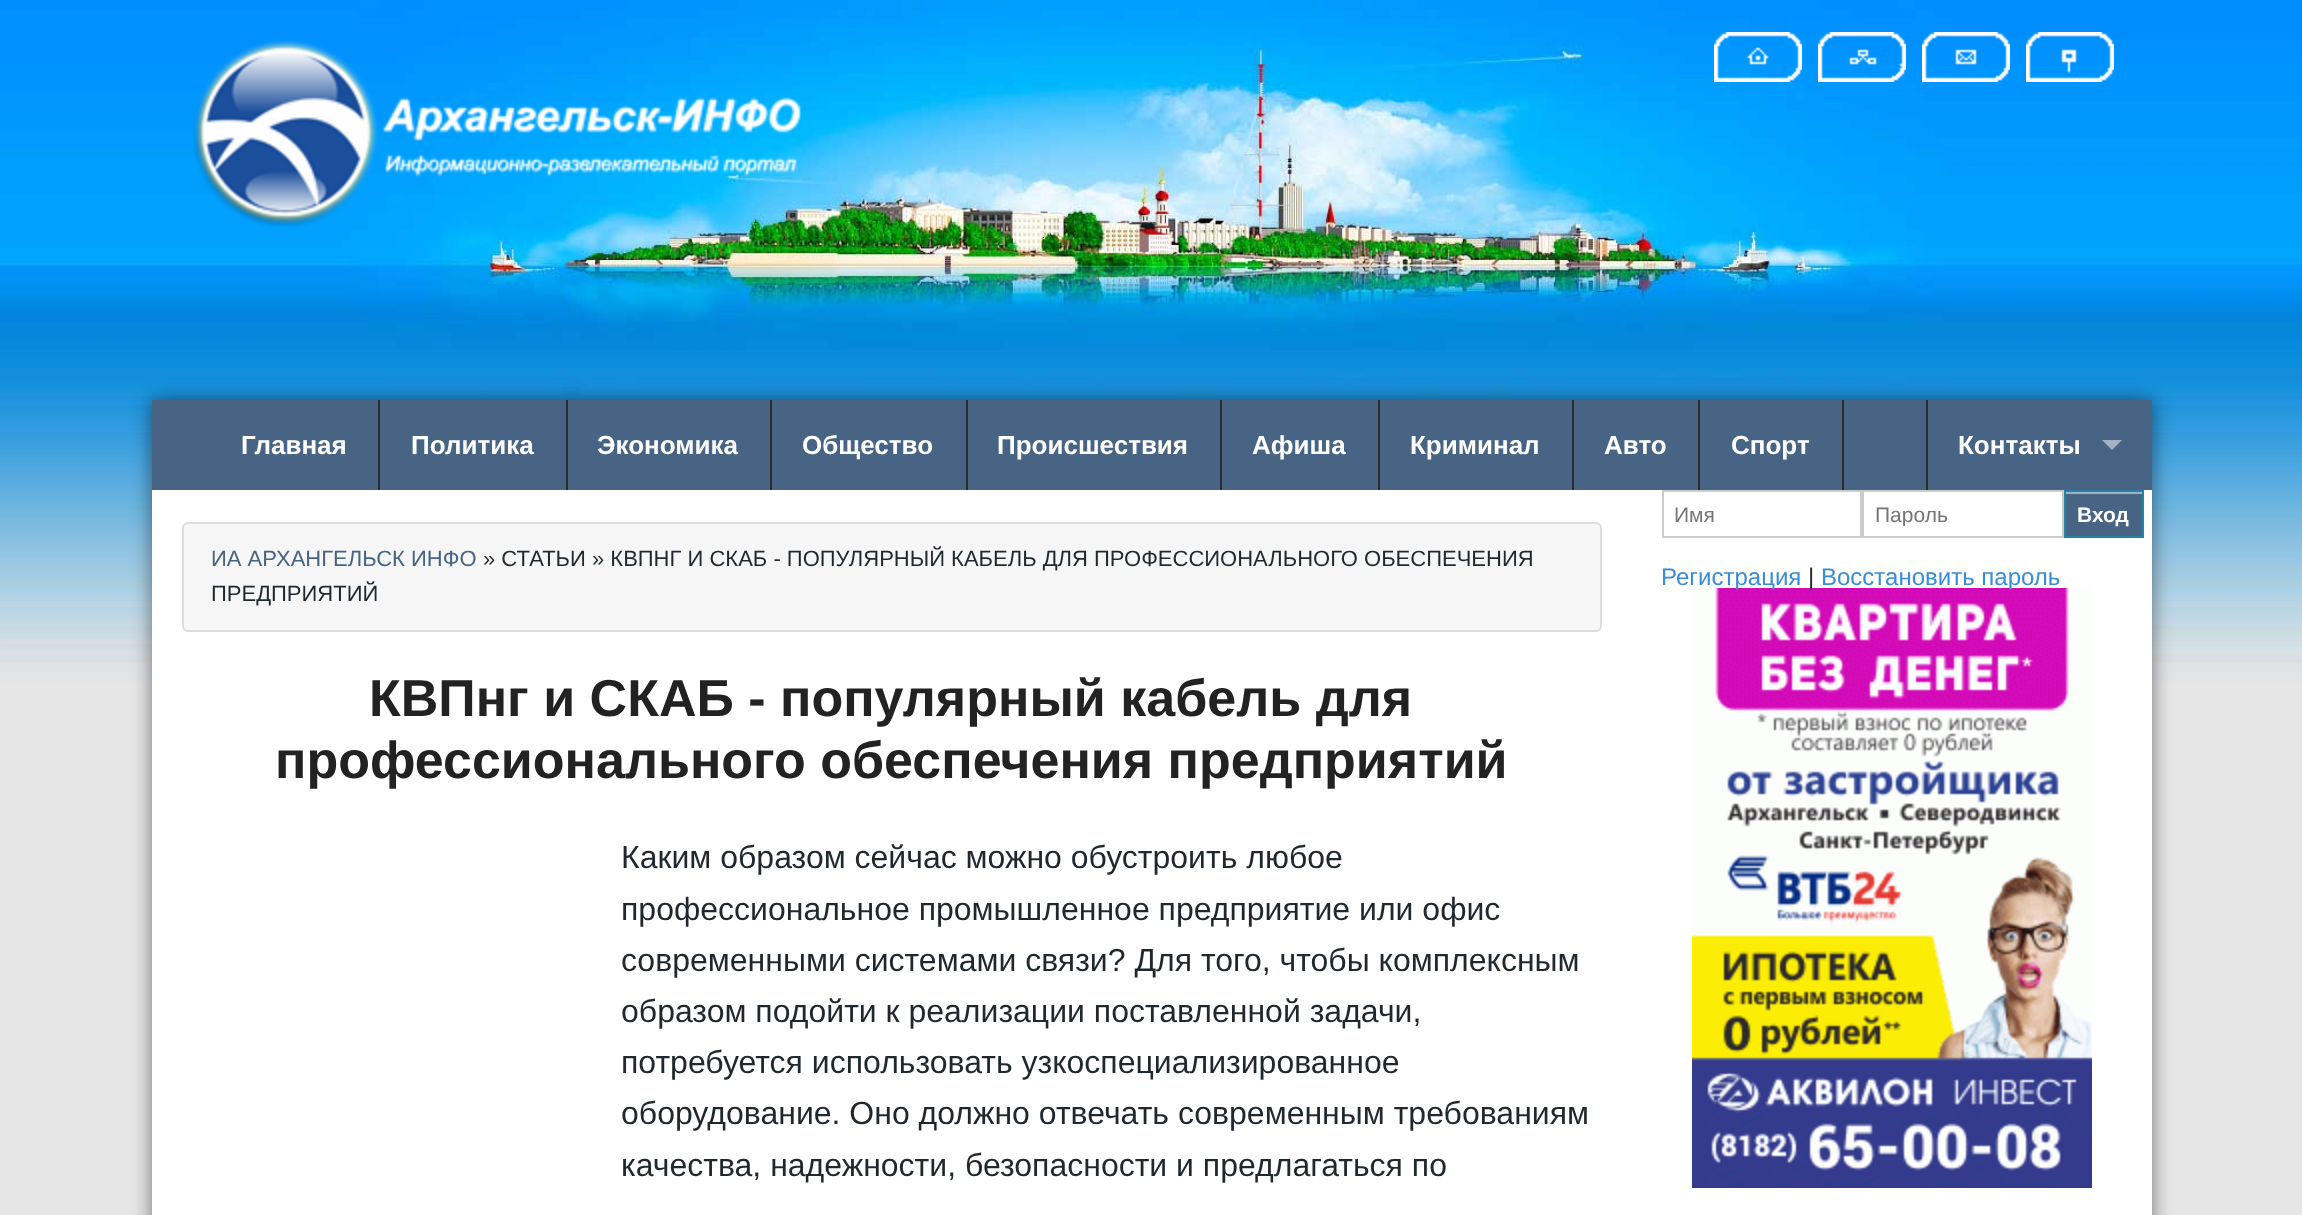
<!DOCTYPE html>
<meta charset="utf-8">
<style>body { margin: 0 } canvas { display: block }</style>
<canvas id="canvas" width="2302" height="1215"></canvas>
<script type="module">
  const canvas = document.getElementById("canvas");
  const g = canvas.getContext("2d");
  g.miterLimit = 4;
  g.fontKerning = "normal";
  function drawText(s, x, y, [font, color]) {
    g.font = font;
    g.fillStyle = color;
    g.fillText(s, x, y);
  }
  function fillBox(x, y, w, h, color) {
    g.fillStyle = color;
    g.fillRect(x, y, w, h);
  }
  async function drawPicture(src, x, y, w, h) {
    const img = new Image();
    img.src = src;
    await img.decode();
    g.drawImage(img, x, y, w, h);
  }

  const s1 = ["bold 26px Liberation Sans", "#FFFFFF"];
  const s2 = ["22px Liberation Sans", "#476484"];
  const s3 = ["22px Liberation Sans", "#1F282C"];
  const s4 = ["bold 52px Liberation Sans", "#222222"];
  const s5 = ["32px Liberation Sans", "#1F282C"];
  const s6 = ["21px Liberation Sans", "#757575"];
  const s7 = ["bold 21px Liberation Sans", "#FFFFFF"];
  const s8 = ["24px Liberation Sans", "#398DD8"];
  const s9 = ["24px Liberation Sans", "#1F282C"];

  fillBox(0, 0, 2302, 1215, "#E6E6E6");
  await drawPicture("pic1.png", 0, 0, 2302, 681);
  await drawPicture("pic2.png", 193, 40, 608, 187);
  await drawPicture("pic3.png", 1714, 32, 88, 50);
  await drawPicture("pic4.png", 1818, 32, 88, 50);
  await drawPicture("pic5.png", 1922, 32, 88, 50);
  await drawPicture("pic6.png", 2026, 32, 88, 50);
  g.fillStyle = "rgba(0, 0, 0, 0.5)";
  g.filter = "blur(10px)";
  g.beginPath();
  g.rect(152, 400, 2000, 90);
  g.fill();
  g.filter = "none";
  g.filter = "blur(10px)";
  g.beginPath();
  g.rect(152, 490, 2000, 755);
  g.fill();
  g.filter = "none";
  fillBox(152, 400, 2000, 90, "#476484");
  drawText("Главная", 241, 454, s1);
  fillBox(378, 400, 2, 90, "#2B2B2B");
  drawText("Политика", 411, 454, s1);
  fillBox(566, 400, 2, 90, "#2B2B2B");
  drawText("Экономика", 597, 454, s1);
  fillBox(770, 400, 2, 90, "#2B2B2B");
  drawText("Общество", 802, 454, s1);
  fillBox(966, 400, 2, 90, "#2B2B2B");
  drawText("Происшествия", 997, 454, s1);
  fillBox(1220, 400, 2, 90, "#2B2B2B");
  drawText("Афиша", 1252, 454, s1);
  fillBox(1378, 400, 2, 90, "#2B2B2B");
  drawText("Криминал", 1410, 454, s1);
  fillBox(1572, 400, 2, 90, "#2B2B2B");
  drawText("Авто", 1604, 454, s1);
  fillBox(1698, 400, 2, 90, "#2B2B2B");
  drawText("Спорт", 1731, 454, s1);
  fillBox(1842, 400, 2, 90, "#2B2B2B");
  fillBox(1926, 400, 2, 90, "#2B2B2B");
  drawText("Контакты", 1958, 454, s1);
  g.fillStyle = "#A3B2C2";
  g.beginPath();
  g.moveTo(2102, 440);
  g.lineTo(2122, 440);
  g.lineTo(2112, 450);
  g.closePath();
  g.fill();
  fillBox(152, 490, 2000, 725, "#FFFFFF");
  g.fillStyle = "#F6F6F6";
  g.beginPath();
  g.roundRect(183, 523, 1418, 108, 5);
  g.fill();
  g.strokeStyle = "#DCDCDC";
  g.lineWidth = 2;
  g.stroke();
  drawText("ИА АРХАНГЕЛЬСК ИНФО", 211, 566, s2);
  drawText("» СТАТЬИ » КВПНГ И СКАБ - ПОПУЛЯРНЫЙ КАБЕЛЬ ДЛЯ ПРОФЕССИОНАЛЬНОГО ОБЕСПЕЧЕНИЯ", 483, 566, s3);
  drawText("ПРЕДПРИЯТИЙ", 211, 601, s3);
  drawText("КВПнг и СКАБ - популярный кабель для", 369, 716, s4);
  drawText("профессионального обеспечения предприятий", 275, 778, s4);
  drawText("Каким образом сейчас можно обустроить любое", 621, 868, s5);
  drawText("профессиональное промышленное предприятие или офис", 621, 920, s5);
  drawText("современными системами связи? Для того, чтобы комплексным", 621, 971, s5);
  drawText("образом подойти к реализации поставленной задачи,", 621, 1022, s5);
  drawText("потребуется использовать узкоспециализированное", 621, 1073, s5);
  drawText("оборудование. Оно должно отвечать современным требованиям", 621, 1124, s5);
  drawText("качества, надежности, безопасности и предлагаться по", 621, 1176, s5);
  g.strokeStyle = "#CCCCCC";
  g.strokeRect(1663, 491, 198, 46);
  drawText("Имя", 1674, 522, s6);
  g.strokeRect(1863, 491, 200, 46);
  g.save();
  g.beginPath();
  g.rect(1874, 502, 176, 24);
  g.clip();
  drawText("Пароль", 1875, 522, s6);
  g.restore();
  fillBox(2066, 494, 76, 42, "#476484");
  fillBox(2066, 492, 76, 2, "#A3B2C2");
  g.strokeStyle = "#2284A1";
  g.strokeRect(2065, 491, 78, 46);
  drawText("Вход", 2077, 522, s7);
  await drawPicture("pic7.png", 1692, 588, 400, 600);
  drawText("Регистрация", 1661, 585, s8);
  drawText("|", 1808, 585, s9);
  drawText("Восстановить пароль", 1821, 585, s8);
</script>
